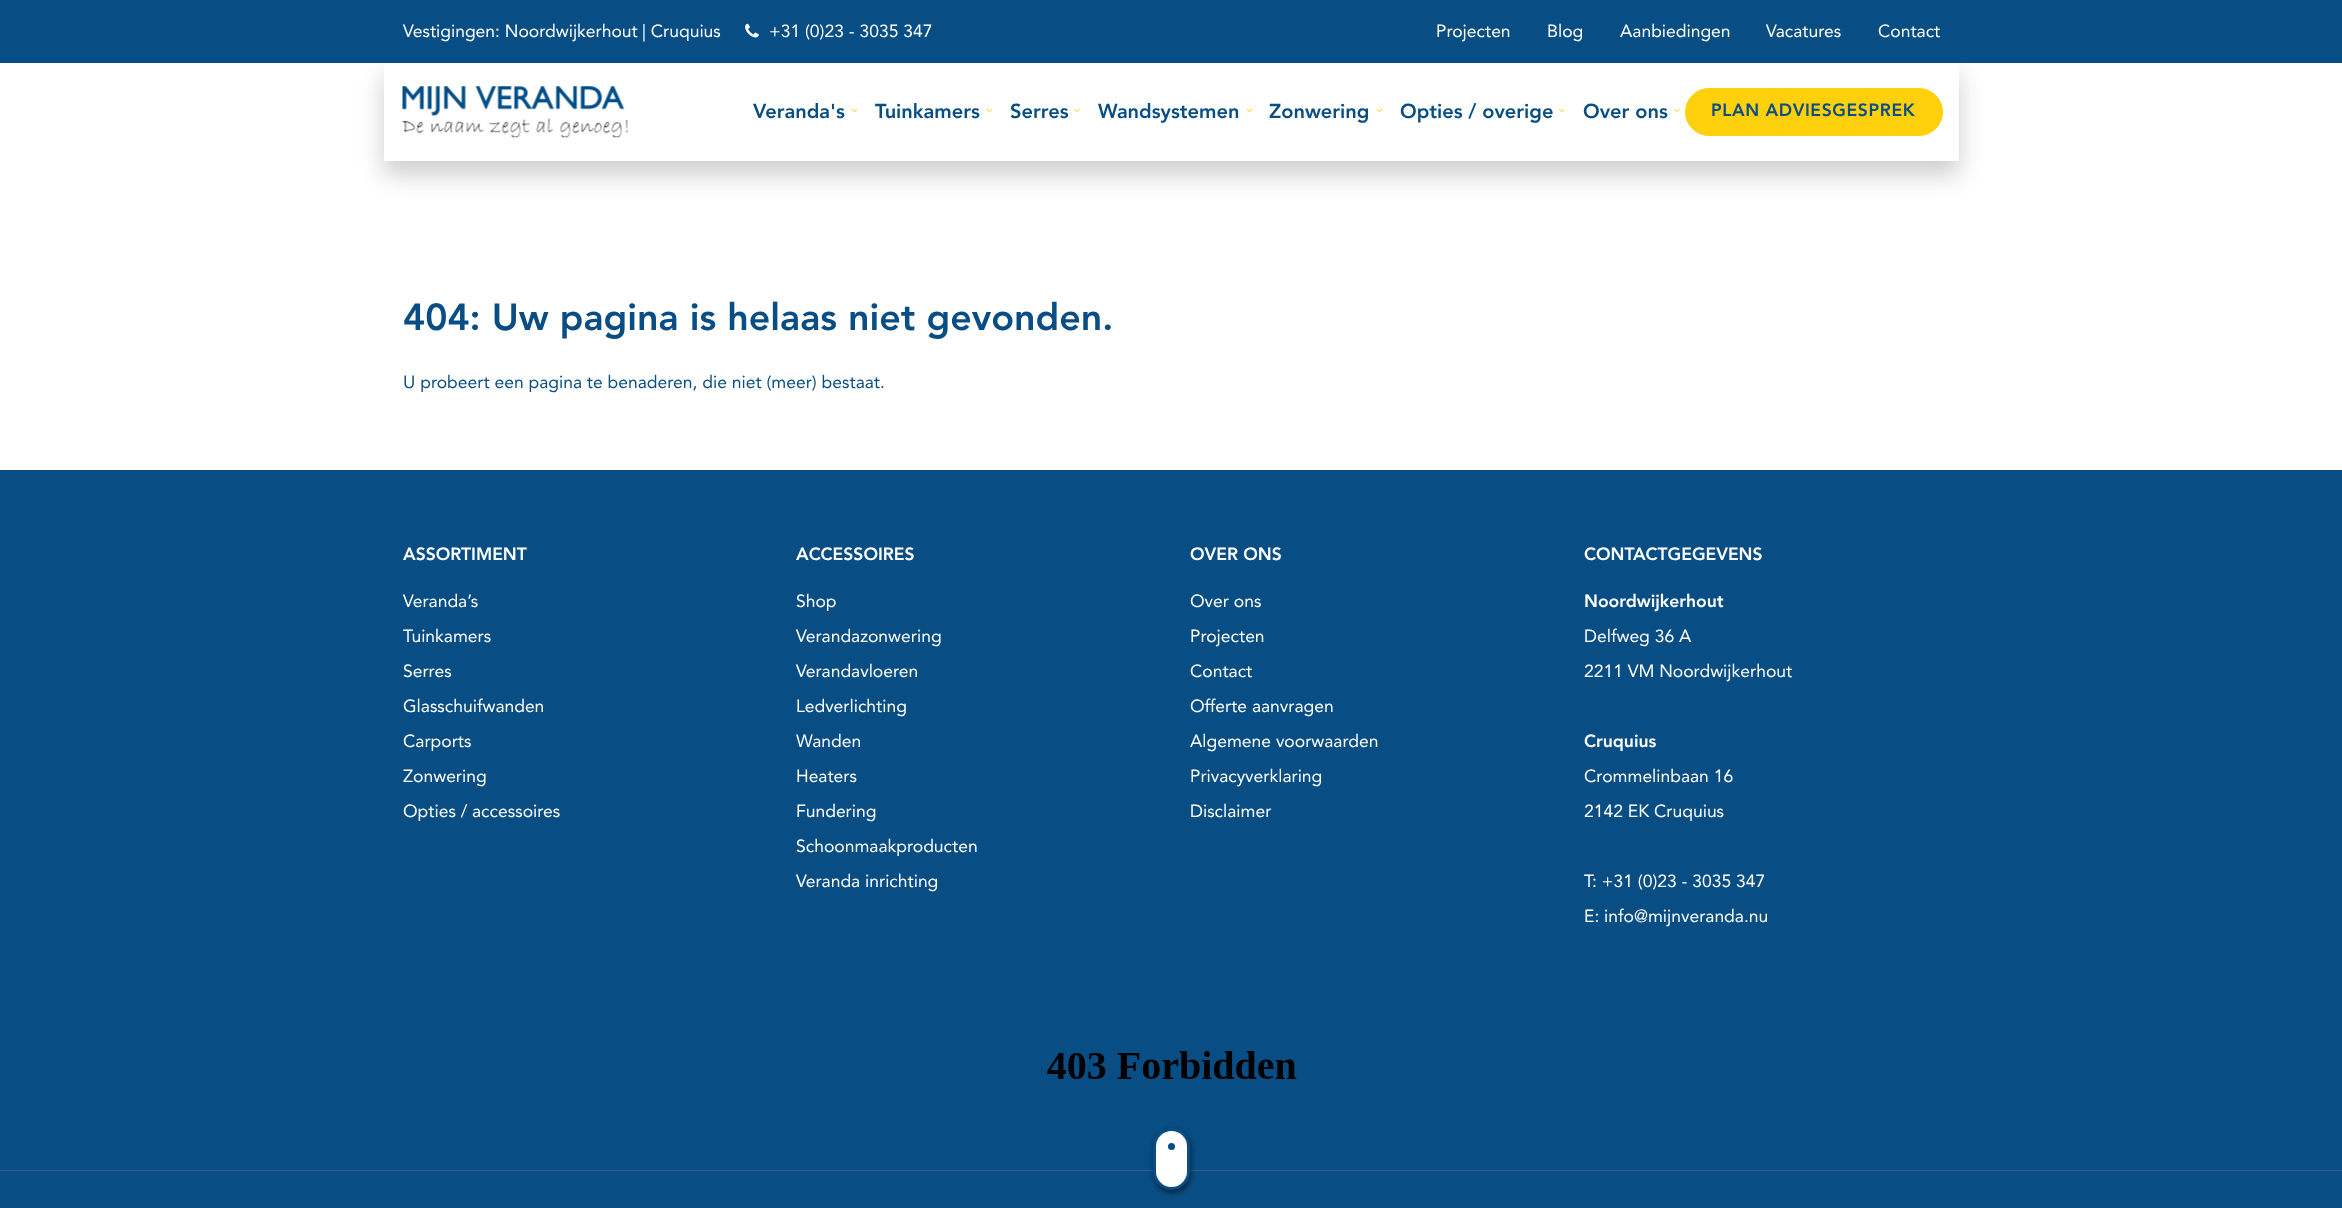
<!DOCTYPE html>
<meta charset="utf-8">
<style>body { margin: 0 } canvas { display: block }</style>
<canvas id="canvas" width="2342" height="1208"></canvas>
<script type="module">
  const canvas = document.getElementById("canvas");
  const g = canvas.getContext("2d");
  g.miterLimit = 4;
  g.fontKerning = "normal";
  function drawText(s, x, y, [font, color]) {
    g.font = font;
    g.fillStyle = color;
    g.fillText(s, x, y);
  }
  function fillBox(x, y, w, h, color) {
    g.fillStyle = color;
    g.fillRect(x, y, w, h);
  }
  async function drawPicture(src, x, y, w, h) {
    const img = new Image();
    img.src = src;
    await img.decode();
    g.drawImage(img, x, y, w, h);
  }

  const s1 = ["17.5px Avenir", "#FFFFFF"];
  const s2 = ["900 20px Avenir", "#084D84"];
  const s3 = ["900 17.5px Avenir", "#084D84"];
  const s4 = ["900 37.5px Avenir", "#084D84"];
  const s5 = ["17.5px Avenir", "#084D84"];
  const s6 = ["900 17.5px Avenir", "#FFFFFF"];

  fillBox(0, 0, 2342, 1208, "#FFFFFF");
  g.fillStyle = "rgba(0, 0, 0, 0.2)";
  g.filter = "blur(12.5px)";
  g.beginPath();
  g.rect(384, 75, 1575, 99);
  g.fill();
  g.filter = "none";
  fillBox(0, 0, 2342, 63, "#084D84");
  drawText("Vestigingen: Noordwijkerhout", 403, 37, s1);
  drawText("| Cruquius", 642, 37, s1);
  await drawPicture("pic1.png", 745, 23, 14, 15);
  drawText("+31 (0)23 - 3035 347", 769, 37, s1);
  drawText("Projecten", 1436, 37, s1);
  drawText("Blog", 1547, 37, s1);
  drawText("Aanbiedingen", 1620, 37, s1);
  drawText("Vacatures", 1766, 37, s1);
  drawText("Contact", 1878, 37, s1);
  fillBox(384, 63, 1575, 98, "#FFFFFF");
  await drawPicture("pic2.png", 402, 86, 226, 52);
  drawText("Veranda's", 753, 118, s2);
  await drawPicture("pic3.png", 851, 108, 7, 4);
  drawText("Tuinkamers", 875, 118, s2);
  await drawPicture("pic3.png", 986, 108, 7, 4);
  drawText("Serres", 1010, 118, s2);
  await drawPicture("pic4.png", 1074, 108, 6, 4);
  drawText("Wandsystemen", 1098, 118, s2);
  await drawPicture("pic3.png", 1246, 108, 7, 4);
  drawText("Zonwering", 1269, 118, s2);
  await drawPicture("pic3.png", 1376, 108, 7, 4);
  drawText("Opties / overige", 1400, 118, s2);
  await drawPicture("pic4.png", 1559, 108, 6, 4);
  drawText("Over ons", 1583, 118, s2);
  await drawPicture("pic4.png", 1674, 108, 6, 4);
  g.fillStyle = "#FFD00B";
  g.beginPath();
  g.roundRect(1685.5, 88.5, 257, 47, 23.5);
  g.fill();
  g.strokeStyle = "#FFD00B";
  g.stroke();
  g.letterSpacing = "0.6px";
  drawText("PLAN ADVIESGESPREK", 1711, 116, s3);
  g.letterSpacing = "0px";
  drawText("404: Uw pagina is helaas niet gevonden.", 403, 330, s4);
  drawText("U probeert een pagina te benaderen, die niet (meer) bestaat.", 403, 388, s5);
  fillBox(0, 470, 2342, 700, "#084D84");
  fillBox(0, 1170, 2342, 1, "#45508E");
  drawText("ASSORTIMENT", 403, 560, s6);
  drawText("Veranda’s", 403, 607, s1);
  drawText("Tuinkamers", 403, 642, s1);
  drawText("Serres", 403, 677, s1);
  drawText("Glasschuifwanden", 403, 712, s1);
  drawText("Carports", 403, 747, s1);
  drawText("Zonwering", 403, 782, s1);
  drawText("Opties / accessoires", 403, 817, s1);
  drawText("ACCESSOIRES", 796, 560, s6);
  drawText("Shop", 796, 607, s1);
  drawText("Verandazonwering", 796, 642, s1);
  drawText("Verandavloeren", 796, 677, s1);
  drawText("Ledverlichting", 796, 712, s1);
  drawText("Wanden", 796, 747, s1);
  drawText("Heaters", 796, 782, s1);
  drawText("Fundering", 796, 817, s1);
  drawText("Schoonmaakproducten", 796, 852, s1);
  drawText("Veranda inrichting", 796, 887, s1);
  drawText("OVER ONS", 1190, 560, s6);
  drawText("Over ons", 1190, 607, s1);
  drawText("Projecten", 1190, 642, s1);
  drawText("Contact", 1190, 677, s1);
  drawText("Offerte aanvragen", 1190, 712, s1);
  drawText("Algemene voorwaarden", 1190, 747, s1);
  drawText("Privacyverklaring", 1190, 782, s1);
  drawText("Disclaimer", 1190, 817, s1);
  drawText("CONTACTGEGEVENS", 1584, 560, s6);
  drawText("Noordwijkerhout", 1584, 607, s6);
  drawText("Delfweg 36 A", 1584, 642, s1);
  drawText("2211 VM Noordwijkerhout", 1584, 677, s1);
  drawText("Cruquius", 1584, 747, s6);
  drawText("Crommelinbaan 16", 1584, 782, s1);
  drawText("2142 EK Cruquius", 1584, 817, s1);
  drawText("T: +31 (0)23 - 3035 347", 1584, 887, s1);
  drawText("E: info@mijnveranda.nu", 1584, 922, s1);
  await drawPicture("pic5.png", 1047, 1051, 250, 28);
  fillBox(0, 1171, 2342, 37, "#084D84");
  g.fillStyle = "rgba(0, 0, 0, 0.5)";
  g.filter = "blur(2.5px)";
  g.beginPath();
  g.roundRect(1154, 1130, 37, 63, 18.5);
  g.fill();
  g.filter = "none";
  g.fillStyle = "#FFFFFF";
  g.beginPath();
  g.roundRect(1154.5, 1129.5, 34, 59, 17);
  g.fill();
  g.strokeStyle = "#084D84";
  g.lineWidth = 3;
  g.stroke();
  g.fillStyle = "#084D84";
  g.beginPath();
  g.arc(1171.5, 1146.5, 3.5, 0, Math.PI * 2);
  g.fill();
</script>
